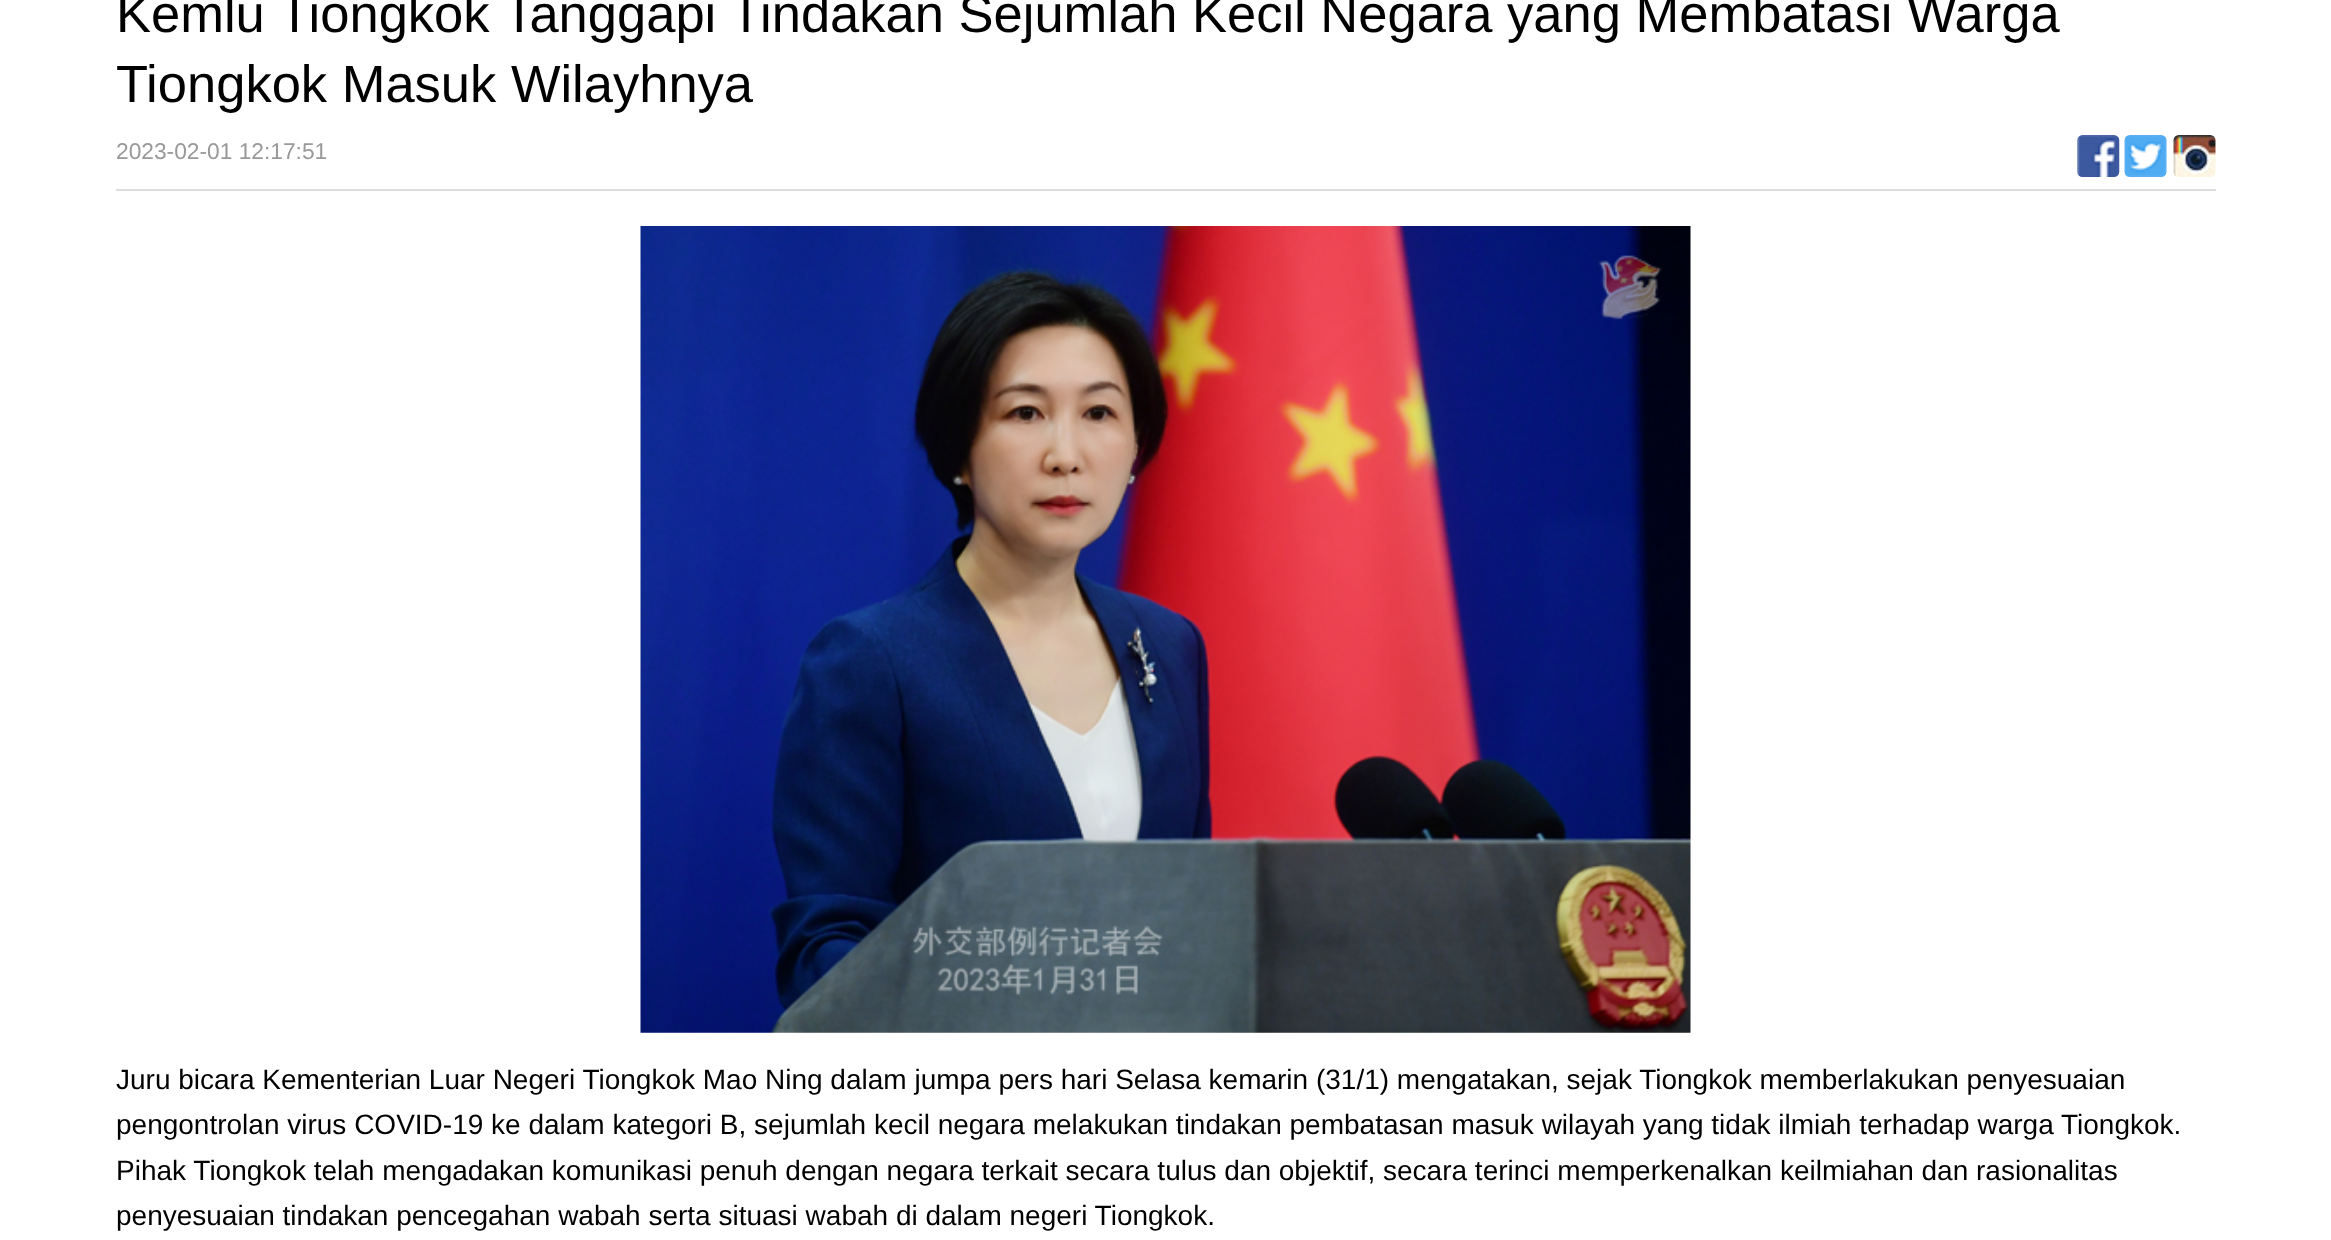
<!DOCTYPE html>
<meta charset="utf-8">
<style>body { margin: 0 } canvas { display: block }</style>
<canvas id="canvas" width="2331" height="1240"></canvas>
<script type="module">
  const canvas = document.getElementById("canvas");
  const g = canvas.getContext("2d");
  g.miterLimit = 4;
  g.fontKerning = "normal";
  function drawText(s, x, y, [font, color]) {
    g.font = font;
    g.fillStyle = color;
    g.fillText(s, x, y);
  }
  function fillBox(x, y, w, h, color) {
    g.fillStyle = color;
    g.fillRect(x, y, w, h);
  }
  async function drawPicture(src, x, y, w, h) {
    const img = new Image();
    img.src = src;
    await img.decode();
    g.drawImage(img, x, y, w, h);
  }

  const s1 = ["52.5px Liberation Sans", "#000000"];
  const s2 = ["22.75px Liberation Sans", "#999999"];
  const s3 = ["28px Liberation Sans", "#000000"];

  fillBox(0, 0, 2331, 1240, "#FFFFFF");
  drawText("Kemlu Tiongkok Tanggapi Tindakan Sejumlah Kecil Negara yang Membatasi Warga", 116, 32, s1);
  drawText("Tiongkok Masuk Wilayhnya", 116, 102, s1);
  fillBox(116, 189, 2100, 2, "#DDDDDD");
  drawText("2023-02-01 12:17:51", 116, 159, s2);
  await drawPicture("pic1.png", 2077, 135, 43, 42);
  await drawPicture("pic2.png", 2124, 135, 43, 42);
  await drawPicture("pic3.png", 2173, 135, 43, 42);
  await drawPicture("pic4.png", 640, 226, 1051, 807);
  drawText("Juru bicara Kementerian Luar Negeri Tiongkok Mao Ning dalam jumpa pers hari Selasa kemarin (31/1) mengatakan, sejak Tiongkok memberlakukan penyesuaian", 116, 1089, s3);
  drawText("pengontrolan virus COVID-19 ke dalam kategori B, sejumlah kecil negara melakukan tindakan pembatasan masuk wilayah yang tidak ilmiah terhadap warga Tiongkok.", 116, 1134, s3);
  drawText("Pihak Tiongkok telah mengadakan komunikasi penuh dengan negara terkait secara tulus dan objektif, secara terinci memperkenalkan keilmiahan dan rasionalitas", 116, 1180, s3);
  drawText("penyesuaian tindakan pencegahan wabah serta situasi wabah di dalam negeri Tiongkok.", 116, 1225, s3);
</script>
